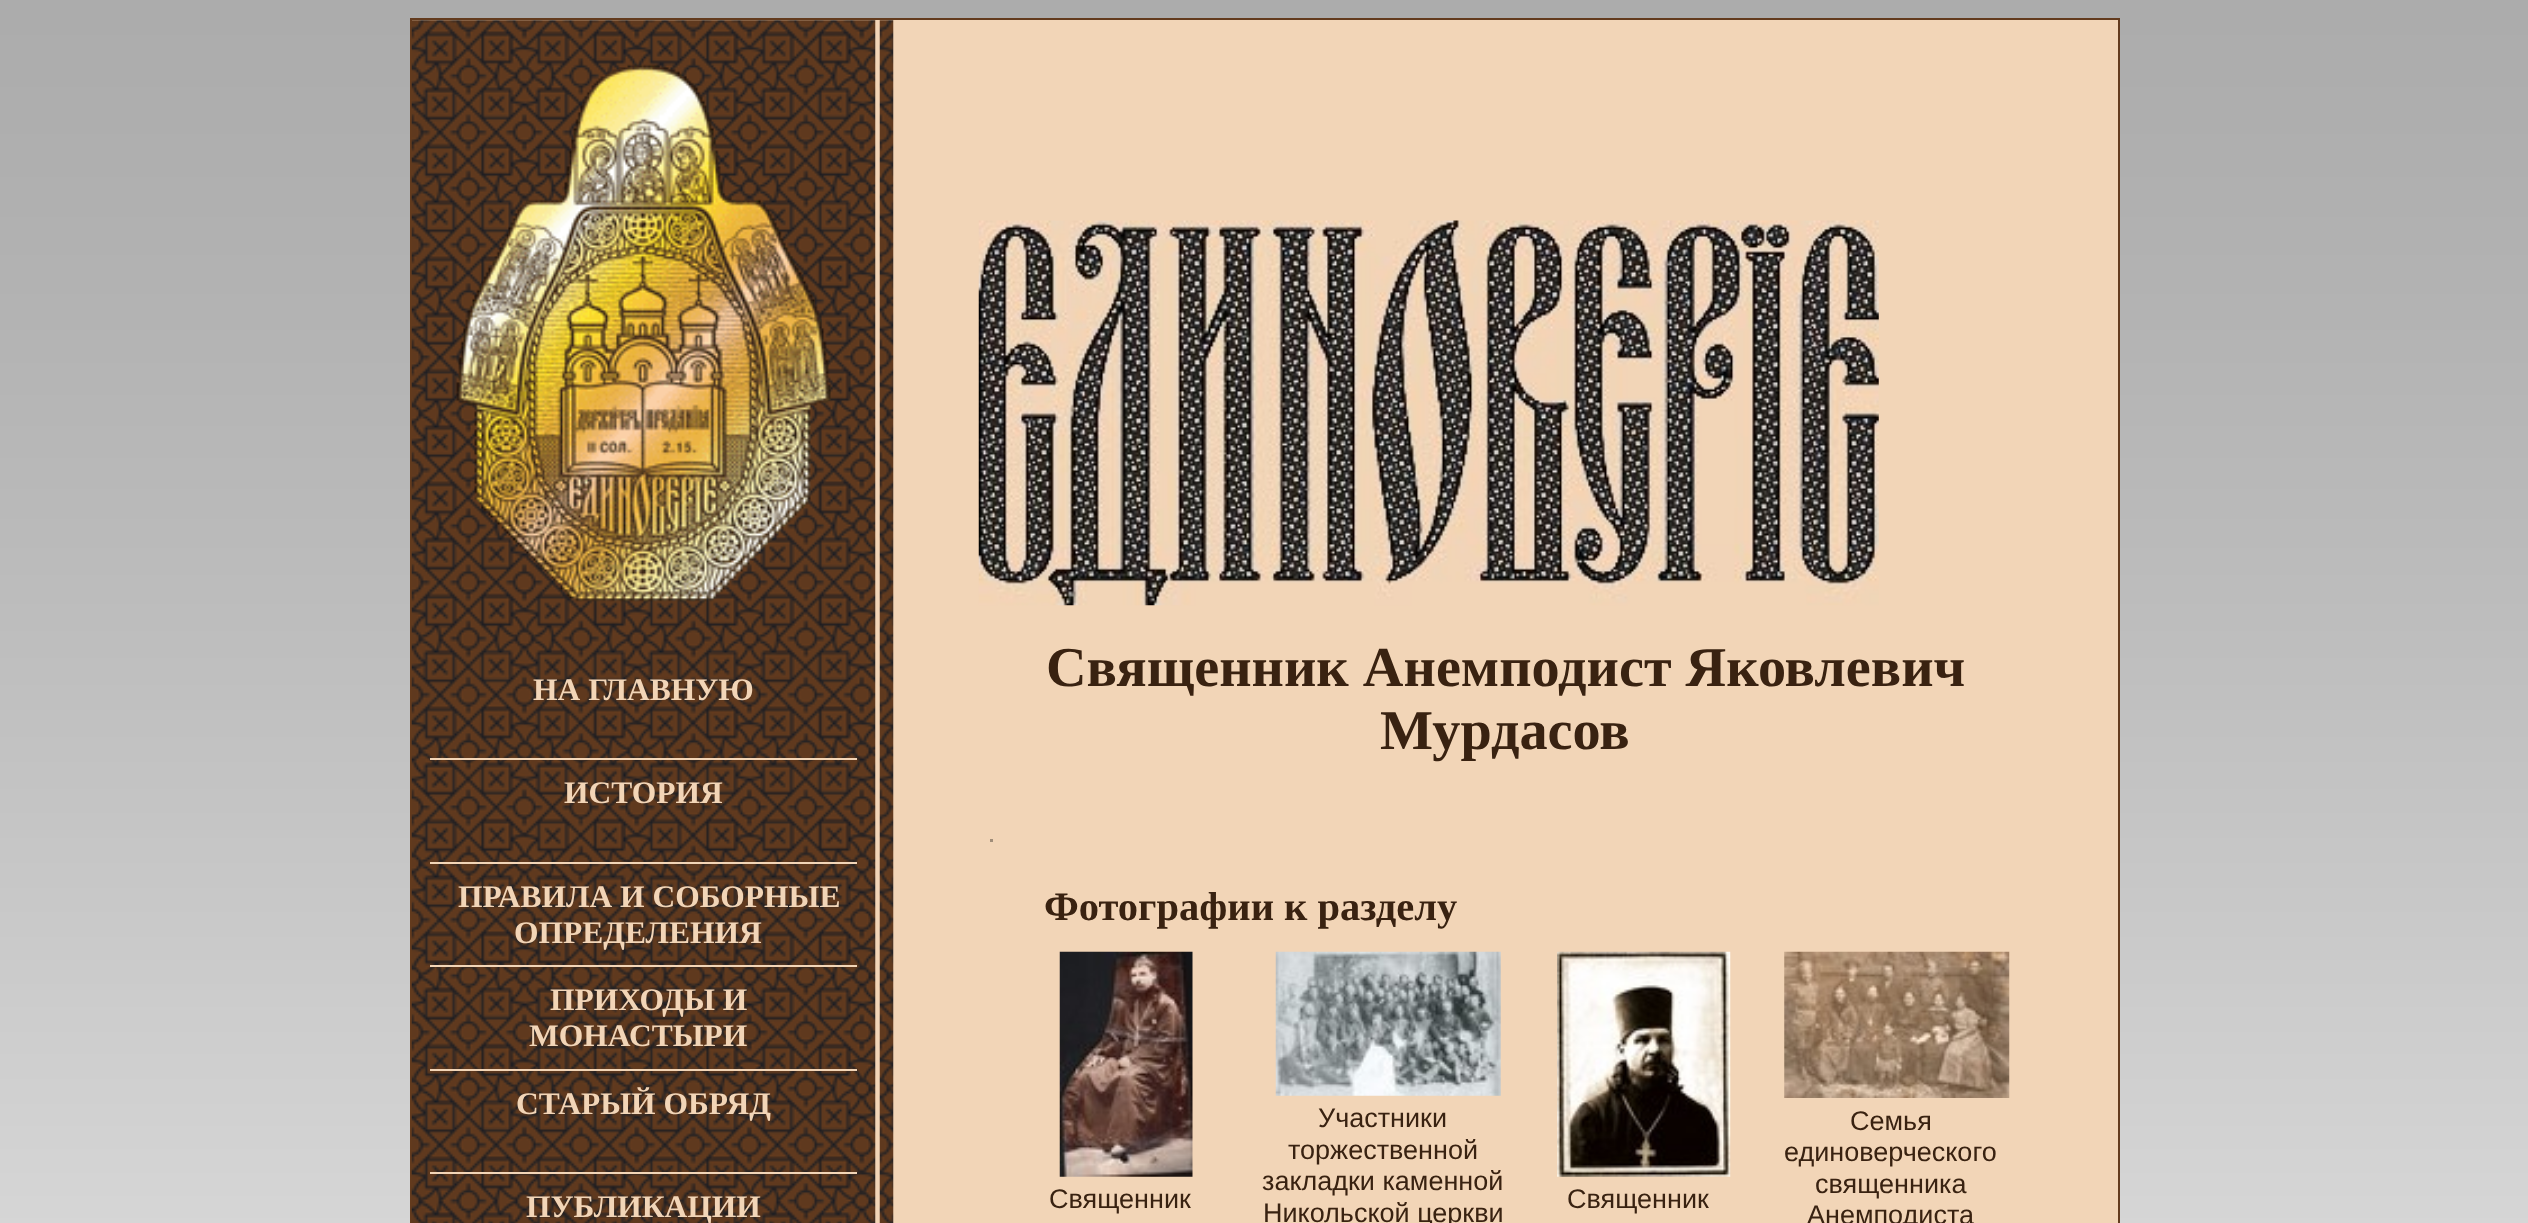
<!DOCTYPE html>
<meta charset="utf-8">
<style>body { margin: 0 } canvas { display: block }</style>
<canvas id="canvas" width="2528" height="1223"></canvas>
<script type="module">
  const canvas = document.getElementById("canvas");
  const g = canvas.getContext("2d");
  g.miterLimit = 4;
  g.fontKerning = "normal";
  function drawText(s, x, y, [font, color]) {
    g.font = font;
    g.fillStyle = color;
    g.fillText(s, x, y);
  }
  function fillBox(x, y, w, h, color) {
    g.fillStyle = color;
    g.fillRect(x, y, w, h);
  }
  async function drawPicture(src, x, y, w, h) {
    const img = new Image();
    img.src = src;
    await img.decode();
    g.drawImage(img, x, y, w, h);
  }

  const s1 = ["bold 31.5px Liberation Serif", "#F2D5B7"];
  const s2 = ["bold 56.25px Liberation Serif", "#392211"];
  const s3 = ["bold 40.5px Liberation Serif", "#392211"];
  const s4 = ["27px Liberation Sans", "#392211"];

  fillBox(0, 0, 2528, 1223, "#FFFFFF");
  await drawPicture("pic1.png", 0, 0, 2528, 1223);
  g.fillStyle = "#F2D5B7";
  g.beginPath();
  g.rect(411, 19, 1708, 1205);
  g.fill();
  g.strokeStyle = "#633B1E";
  g.lineWidth = 2;
  g.stroke();
  await drawPicture("pic2.png", 411, 20, 465, 1203);
  await drawPicture("pic3.png", 456, 64, 375, 538);
  fillBox(430, 758, 427, 2, "#F2D5B7");
  drawText("НА ГЛАВНУЮ", 533, 700, s1);
  fillBox(430, 862, 427, 2, "#F2D5B7");
  drawText("ИСТОРИЯ", 564, 803, s1);
  fillBox(430, 965, 427, 2, "#F2D5B7");
  drawText("ПРАВИЛА И СОБОРНЫЕ", 458, 907, s1);
  drawText("ОПРЕДЕЛЕНИЯ", 514, 943, s1);
  fillBox(430, 1069, 427, 2, "#F2D5B7");
  drawText("ПРИХОДЫ И", 550, 1010, s1);
  drawText("МОНАСТЫРИ", 529, 1046, s1);
  fillBox(430, 1172, 427, 2, "#F2D5B7");
  drawText("СТАРЫЙ ОБРЯД", 516, 1114, s1);
  drawText("ПУБЛИКАЦИИ", 526, 1217, s1);
  await drawPicture("pic4.png", 879, 20, 15, 1203);
  await drawPicture("pic5.png", 978, 220, 901, 386);
  drawText("Священник Анемподист Яковлевич", 1046, 686, s2);
  drawText("Мурдасов", 1380, 749, s2);
  fillBox(990, 839, 3, 3, "#A08D79");
  drawText("Фотографии к разделу", 1044, 920, s3);
  await drawPicture("pic6.png", 1059, 951, 134, 226);
  drawText("Священник", 1049, 1208, s4);
  await drawPicture("pic7.png", 1275, 951, 226, 145);
  drawText("Участники", 1318, 1127, s4);
  drawText("торжественной", 1288, 1159, s4);
  drawText("закладки каменной", 1262, 1190, s4);
  drawText("Никольской церкви", 1263, 1222, s4);
  await drawPicture("pic8.png", 1557, 951, 174, 226);
  drawText("Священник", 1567, 1208, s4);
  await drawPicture("pic9.png", 1784, 951, 226, 147);
  drawText("Семья", 1850, 1130, s4);
  drawText("единоверческого", 1784, 1161, s4);
  drawText("священника", 1815, 1193, s4);
  drawText("Анемподиста", 1807, 1224, s4);
</script>
